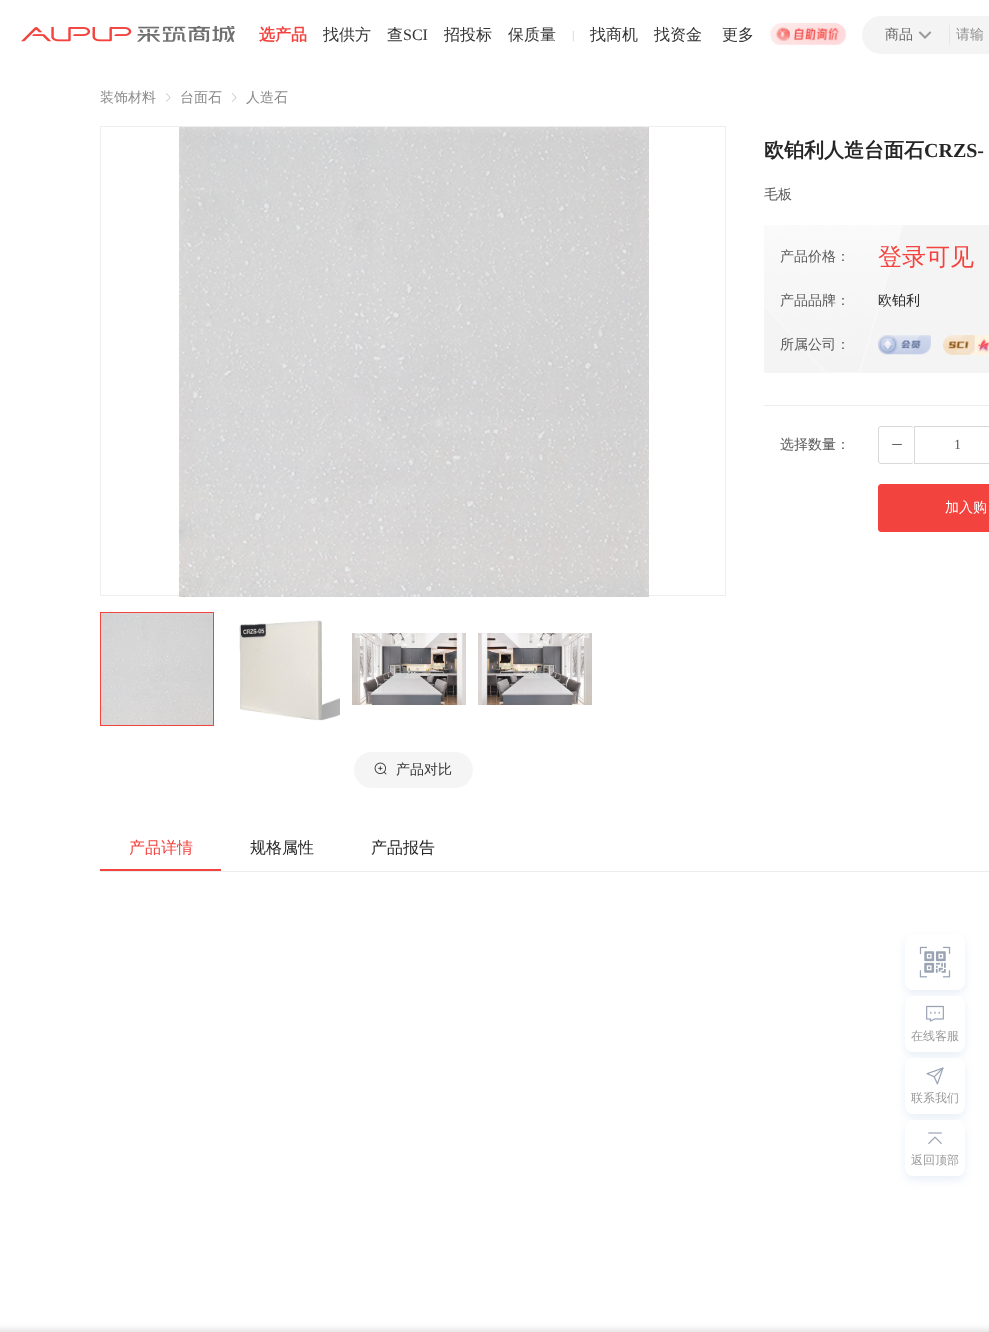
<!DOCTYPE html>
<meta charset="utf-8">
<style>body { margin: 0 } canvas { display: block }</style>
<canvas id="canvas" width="989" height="1332"></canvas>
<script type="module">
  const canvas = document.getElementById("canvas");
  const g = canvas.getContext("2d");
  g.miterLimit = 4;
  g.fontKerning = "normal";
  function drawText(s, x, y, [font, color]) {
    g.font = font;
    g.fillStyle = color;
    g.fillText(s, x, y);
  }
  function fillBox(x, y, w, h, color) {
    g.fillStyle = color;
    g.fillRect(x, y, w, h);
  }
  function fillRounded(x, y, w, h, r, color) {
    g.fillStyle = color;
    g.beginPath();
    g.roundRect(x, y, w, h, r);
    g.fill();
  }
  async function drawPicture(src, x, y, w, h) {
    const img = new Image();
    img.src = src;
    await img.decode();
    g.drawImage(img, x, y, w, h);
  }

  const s1 = ["bold 16px WenQuanYi Zen Hei", "#F2433E"];
  const s2 = ["500 16px WenQuanYi Zen Hei", "#333333"];
  const s3 = ["16px Liberation Serif", "#333333"];
  const s4 = ["12px Liberation Serif", "#C5CAD5"];
  const s5 = ["500 14px WenQuanYi Zen Hei", "#666666"];
  const s6 = ["500 14px WenQuanYi Zen Hei", "#929292"];
  const s7 = ["500 14px WenQuanYi Zen Hei", "#8C8C8C"];
  const s8 = ["bold 20px WenQuanYi Zen Hei", "#262626"];
  const s9 = ["bold 20px Liberation Serif", "#262626"];
  const s10 = ["500 14px WenQuanYi Zen Hei", "#595959"];
  const s11 = ["500 24px WenQuanYi Zen Hei", "#F2433E"];
  const s12 = ["500 14px WenQuanYi Zen Hei", "#262626"];
  const s13 = ["14px Liberation Serif", "#595959"];
  const s14 = ["500 14px WenQuanYi Zen Hei", "#FFFFFF"];
  const s15 = ["500 14px WenQuanYi Zen Hei", "#333333"];
  const s16 = ["500 16px WenQuanYi Zen Hei", "#F2433E"];
  const s17 = ["500 16px WenQuanYi Zen Hei", "#262626"];
  const s18 = ["500 12px WenQuanYi Zen Hei", "#999999"];

  fillBox(0, 0, 989, 1332, "#FFFFFF");
  await drawPicture("pic1.png", 21, 26, 214, 16);
  drawText("选产品", 259, 40, s1);
  drawText("找供方", 323, 40, s2);
  drawText("查", 387, 40, s2);
  drawText("SCI", 403, 40, s3);
  drawText("招投标", 444, 40, s2);
  drawText("保质量", 508, 40, s2);
  drawText("|", 572, 39, s4);
  drawText("找商机", 590, 40, s2);
  drawText("找资金", 654, 40, s2);
  drawText("更多", 722, 40, s2);
  await drawPicture("pic2.png", 770, 23, 77, 22);
  fillRounded(862, 16, 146, 38, 19, "#F4F4F4");
  drawText("商品", 885, 39, s5);
  await drawPicture("pic3.png", 918, 31, 14, 8);
  fillBox(949, 25, 1, 20, "#E6E6E6");
  drawText("请输", 956, 39, s6);
  drawText("装饰材料", 100, 102, s7);
  await drawPicture("pic4.png", 166, 93, 5, 9);
  drawText("台面石", 180, 102, s7);
  await drawPicture("pic4.png", 232, 93, 5, 9);
  drawText("人造石", 246, 102, s7);
  drawText("欧铂利人造台面石", 764, 157, s8);
  drawText("CRZS-", 924, 157, s9);
  drawText("毛板", 764, 199, s10);
  await drawPicture("pic5.png", 764, 225, 225, 148);
  drawText("产品价格：", 780, 261, s10);
  drawText("登录可见", 878, 265, s11);
  drawText("产品品牌：", 780, 305, s10);
  drawText("欧铂利", 878, 305, s12);
  drawText("所属公司：", 780, 349, s10);
  await drawPicture("pic6.png", 878, 335, 53, 20);
  await drawPicture("pic7.png", 943, 335, 46, 20);
  fillBox(764, 405, 225, 1, "#ECEDEF");
  drawText("选择数量：", 780, 449, s10);
  g.fillStyle = "#D9D9D9";
  g.beginPath();
  g.moveTo(881, 426);
  g.lineTo(911, 426);
  g.bezierCurveTo(912.5, 426, 914, 427.5, 914, 429);
  g.lineTo(914, 461);
  g.bezierCurveTo(914, 462.5, 912.5, 464, 911, 464);
  g.lineTo(881, 464);
  g.bezierCurveTo(879.5, 464, 878, 462.5, 878, 461);
  g.lineTo(878, 429);
  g.bezierCurveTo(878, 427.5, 879.5, 426, 881, 426);
  g.closePath();
  g.moveTo(881, 427);
  g.lineTo(911, 427);
  g.bezierCurveTo(912.5, 427, 914, 428, 914, 429);
  g.lineTo(914, 461);
  g.bezierCurveTo(914, 462, 912.5, 463, 911, 463);
  g.lineTo(881, 463);
  g.bezierCurveTo(880, 463, 879, 462, 879, 461);
  g.lineTo(879, 429);
  g.bezierCurveTo(879, 428, 880, 427, 881, 427);
  g.closePath();
  g.fill("evenodd");
  await drawPicture("pic8.png", 892, 444, 10, 1);
  g.strokeStyle = "#D9D9D9";
  g.strokeRect(914.5, 426.5, 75, 37);
  drawText("1", 954, 449, s13);
  g.fillStyle = "#F2433E";
  g.beginPath();
  g.roundRect(878.5, 484.5, 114, 47, 2.5);
  g.fill();
  g.strokeStyle = "#F2433E";
  g.stroke();
  drawText("加入购", 945, 512, s14);
  g.strokeStyle = "#EEEEEE";
  g.strokeRect(100.5, 126.5, 625, 469);
  await drawPicture("pic9.png", 179, 127, 470, 470);
  g.strokeStyle = "#F2433E";
  g.strokeRect(100.5, 612.5, 113, 113);
  await drawPicture("pic10.png", 101, 613, 112, 112);
  await drawPicture("pic11.png", 239, 620, 101, 101);
  await drawPicture("pic12.png", 352, 633, 114, 72);
  await drawPicture("pic13.png", 478, 633, 114, 72);
  fillRounded(354, 752, 119, 36, 18, "#F5F5F5");
  await drawPicture("pic14.png", 374, 762, 13, 13);
  drawText("产品对比", 396, 774, s15);
  fillBox(100, 871, 889, 1, "#ECEDEF");
  drawText("产品详情", 129, 853, s16);
  fillBox(100, 869, 121, 2, "#F2433E");
  drawText("规格属性", 250, 853, s17);
  drawText("产品报告", 371, 853, s17);
  g.fillStyle = "rgba(75, 125, 194, 0.12)";
  g.filter = "blur(4px)";
  g.beginPath();
  g.roundRect(905, 938, 60, 56, 8);
  g.fill();
  g.filter = "none";
  fillRounded(905, 934, 60, 56, 8, "#FFFFFF");
  await drawPicture("pic15.png", 919, 946, 32, 32);
  g.fillStyle = "rgba(75, 125, 194, 0.12)";
  g.filter = "blur(4px)";
  g.beginPath();
  g.roundRect(905, 1000, 60, 56, 8);
  g.fill();
  g.filter = "none";
  fillRounded(905, 996, 60, 56, 8, "#FFFFFF");
  await drawPicture("pic16.png", 926, 1005, 18, 17);
  drawText("在线客服", 911, 1040, s18);
  g.fillStyle = "rgba(75, 125, 194, 0.12)";
  g.filter = "blur(4px)";
  g.beginPath();
  g.roundRect(905, 1062, 60, 56, 8);
  g.fill();
  g.filter = "none";
  fillRounded(905, 1058, 60, 56, 8, "#FFFFFF");
  await drawPicture("pic17.png", 926, 1067, 18, 18);
  drawText("联系我们", 911, 1102, s18);
  g.fillStyle = "rgba(75, 125, 194, 0.12)";
  g.filter = "blur(4px)";
  g.beginPath();
  g.roundRect(905, 1124, 60, 56, 8);
  g.fill();
  g.filter = "none";
  fillRounded(905, 1120, 60, 56, 8, "#FFFFFF");
  await drawPicture("pic18.png", 928, 1132, 14, 12);
  drawText("返回顶部", 911, 1164, s18);
  g.fillStyle = "rgba(0, 0, 0, 0.2)";
  g.filter = "blur(5px)";
  g.beginPath();
  g.roundRect(-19, 1332, 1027, 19, 4);
  g.fill();
  g.filter = "none";
</script>
